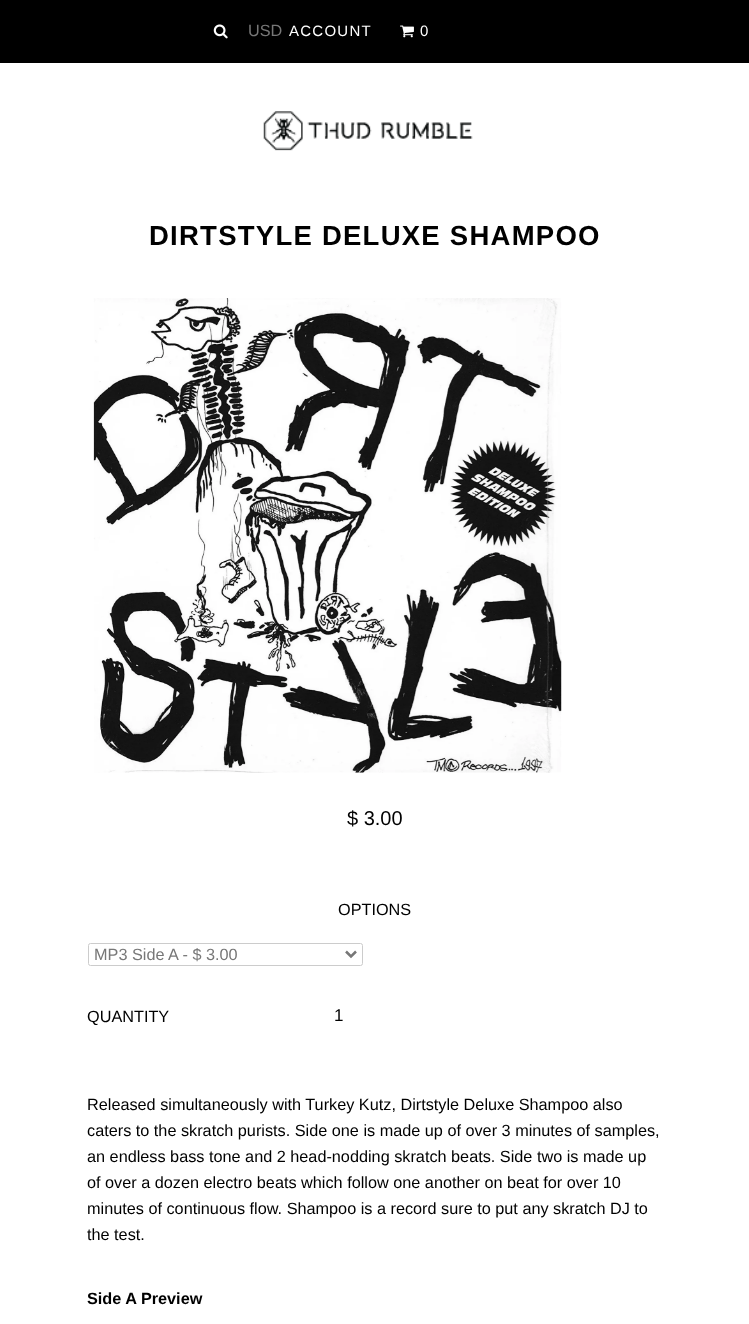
<!DOCTYPE html>
<meta charset="utf-8">
<style>body { margin: 0 } canvas { display: block }</style>
<canvas id="canvas" width="749" height="1324"></canvas>
<script type="module">
  const canvas = document.getElementById("canvas");
  const g = canvas.getContext("2d");
  g.miterLimit = 4;
  g.fontKerning = "normal";
  function drawText(s, x, y, [font, color]) {
    g.font = font;
    g.fillStyle = color;
    g.fillText(s, x, y);
  }
  function fillBox(x, y, w, h, color) {
    g.fillStyle = color;
    g.fillRect(x, y, w, h);
  }
  async function drawPicture(src, x, y, w, h) {
    const img = new Image();
    img.src = src;
    await img.decode();
    g.drawImage(img, x, y, w, h);
  }

  const s1 = ["16.25px Liberation Sans", "#777777"];
  const s2 = ["15px Liberation Sans", "#FFFFFF"];
  const s3 = ["bold 27.5px Liberation Sans", "#000000"];
  const s4 = ["20px Liberation Sans", "#000000"];
  const s5 = ["16.25px Liberation Sans", "#000000"];
  const s6 = ["17px Liberation Sans", "#000000"];
  const s7 = ["bold 16.25px Liberation Sans", "#000000"];

  fillBox(0, 0, 749, 1324, "#FFFFFF");
  fillBox(0, 0, 749, 63, "#000000");
  await drawPicture("pic1.png", 213, 24, 15, 15);
  drawText("USD", 248, 36, s1);
  g.letterSpacing = "1.25px";
  drawText("ACCOUNT", 289, 36, s2);
  await drawPicture("pic2.png", 400, 25, 14, 13);
  drawText("0", 420, 36, s2);
  await drawPicture("pic3.png", 263, 111, 210, 40);
  drawText("DIRTSTYLE DELUXE SHAMPOO", 149, 245, s3);
  await drawPicture("pic4.png", 93, 298, 469, 475);
  g.letterSpacing = "0px";
  drawText("$ 3.00", 347, 825, s4);
  drawText("OPTIONS", 338, 915, s5);
  g.beginPath();
  g.roundRect(88.5, 943.5, 274, 22, 2);
  g.strokeStyle = "#CCCCCC";
  g.stroke();
  g.beginPath();
  g.moveTo(346, 951.5);
  g.lineTo(351, 956.5);
  g.lineTo(356, 951.5);
  g.strokeStyle = "#777777";
  g.lineWidth = 2.5;
  g.stroke();
  drawText("MP3 Side A - $ 3.00", 94, 960, s1);
  drawText("QUANTITY", 87, 1022, s5);
  drawText("1", 334, 1021, s6);
  drawText("Released simultaneously with Turkey Kutz, Dirtstyle Deluxe Shampoo also", 87, 1110, s5);
  drawText("caters to the skratch purists. Side one is made up of over 3 minutes of samples,", 87, 1136, s5);
  drawText("an endless bass tone and 2 head-nodding skratch beats. Side two is made up", 87, 1162, s5);
  drawText("of over a dozen electro beats which follow one another on beat for over 10", 87, 1188, s5);
  drawText("minutes of continuous flow. Shampoo is a record sure to put any skratch DJ to", 87, 1214, s5);
  drawText("the test.", 87, 1240, s5);
  drawText("Side A Preview", 87, 1304, s7);
</script>
